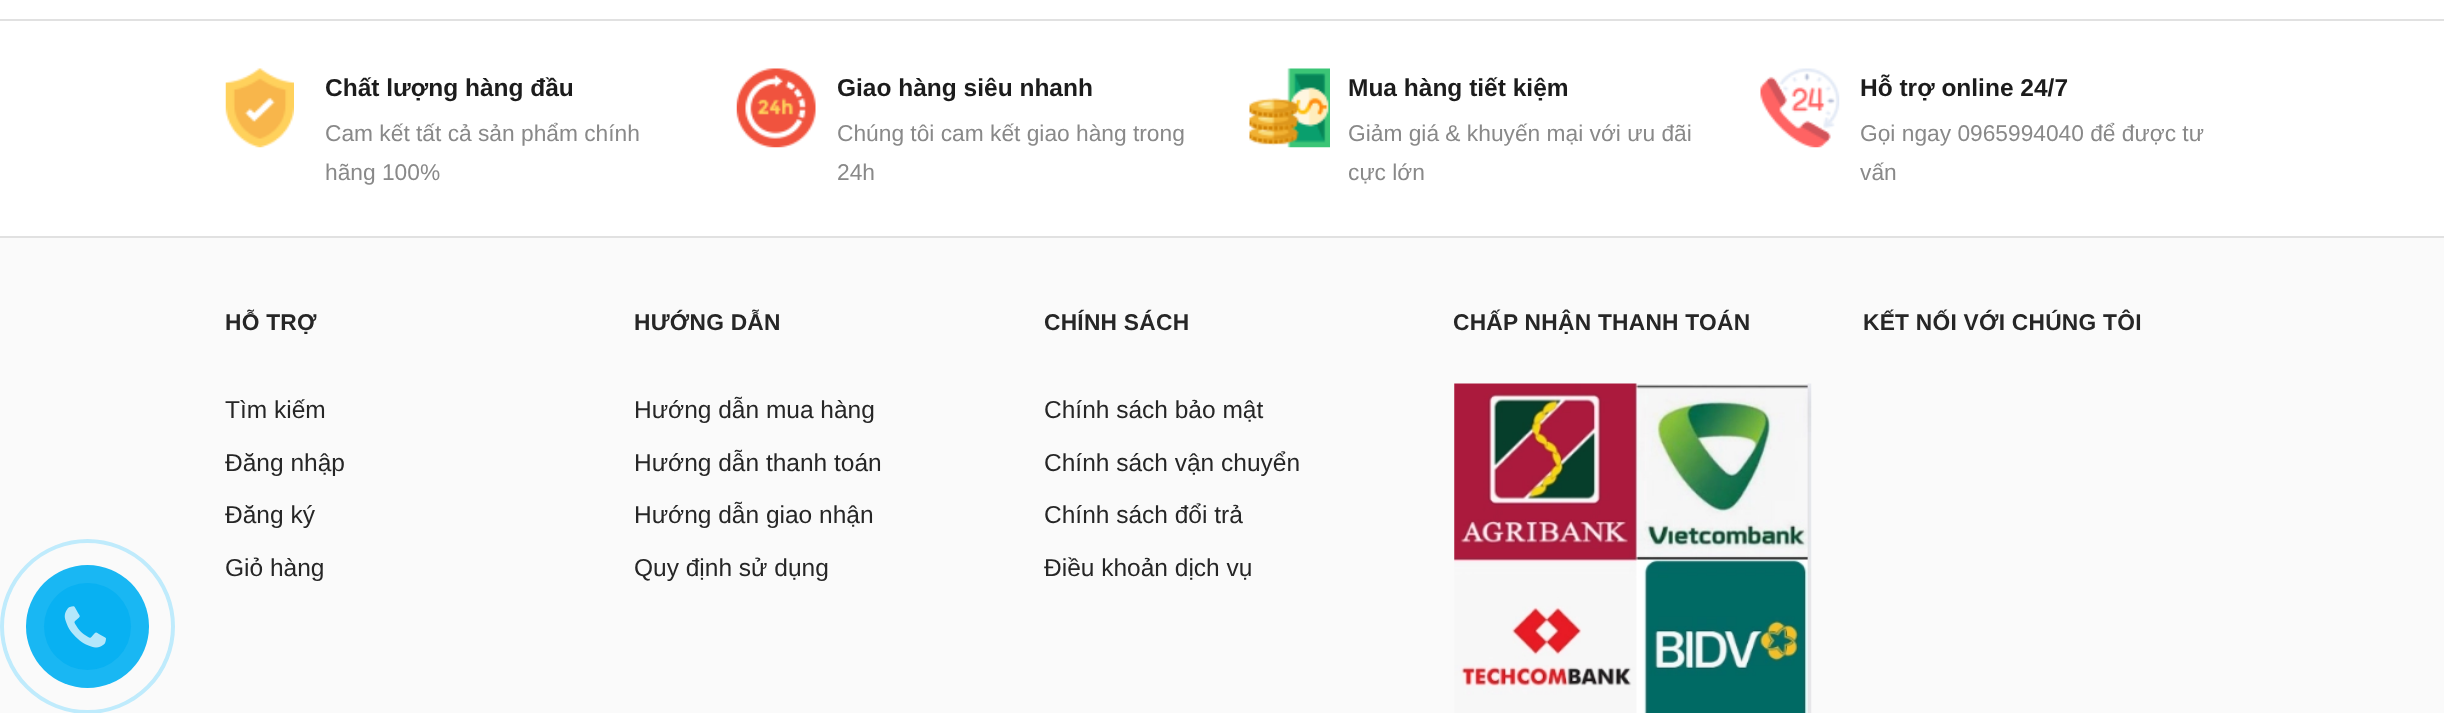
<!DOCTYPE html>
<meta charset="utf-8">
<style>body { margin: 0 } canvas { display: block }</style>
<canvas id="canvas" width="2444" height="713"></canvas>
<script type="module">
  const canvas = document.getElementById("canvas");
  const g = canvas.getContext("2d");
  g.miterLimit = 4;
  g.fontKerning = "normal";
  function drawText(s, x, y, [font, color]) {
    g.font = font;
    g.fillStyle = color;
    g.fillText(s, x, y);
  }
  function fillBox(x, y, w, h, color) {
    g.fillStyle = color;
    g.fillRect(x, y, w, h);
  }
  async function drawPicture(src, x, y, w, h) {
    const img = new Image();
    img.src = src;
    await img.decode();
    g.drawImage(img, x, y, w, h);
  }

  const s1 = ["bold 24.5px Liberation Sans", "#1C1C1C"];
  const s2 = ["22.75px Liberation Sans", "#898989"];
  const s3 = ["bold 22.75px Liberation Sans", "#262626"];
  const s4 = ["24.5px Liberation Sans", "#262626"];

  fillBox(0, 0, 2444, 713, "#FFFFFF");
  fillBox(0, 19, 2444, 2, "#E1E1E1");
  fillBox(0, 236, 2444, 2, "#E1E1E1");
  await drawPicture("pic1.png", 225, 68, 69, 80);
  drawText("Chất lượng hàng đầu", 325, 96, s1);
  drawText("Cam kết tất cả sản phẩm chính", 325, 141, s2);
  drawText("hãng 100%", 325, 180, s2);
  await drawPicture("pic2.png", 736, 68, 80, 80);
  drawText("Giao hàng siêu nhanh", 837, 96, s1);
  drawText("Chúng tôi cam kết giao hàng trong", 837, 141, s2);
  drawText("24h", 837, 180, s2);
  await drawPicture("pic3.png", 1249, 68, 81, 80);
  drawText("Mua hàng tiết kiệm", 1348, 96, s1);
  drawText("Giảm giá & khuyến mại với ưu đãi", 1348, 141, s2);
  drawText("cực lớn", 1348, 180, s2);
  await drawPicture("pic4.png", 1760, 68, 80, 80);
  drawText("Hỗ trợ online 24/7", 1860, 96, s1);
  drawText("Gọi ngay 0965994040 để được tư", 1860, 141, s2);
  drawText("vấn", 1860, 180, s2);
  fillBox(0, 238, 2444, 475, "#FAFAFA");
  g.letterSpacing = "0.25px";
  drawText("HỖ TRỢ", 225, 330, s3);
  g.letterSpacing = "0px";
  drawText("Tìm kiếm", 225, 418, s4);
  drawText("Đăng nhập", 225, 471, s4);
  drawText("Đăng ký", 225, 523, s4);
  drawText("Giỏ hàng", 225, 576, s4);
  g.letterSpacing = "0.25px";
  drawText("HƯỚNG DẪN", 634, 330, s3);
  g.letterSpacing = "0px";
  drawText("Hướng dẫn mua hàng", 634, 418, s4);
  drawText("Hướng dẫn thanh toán", 634, 471, s4);
  drawText("Hướng dẫn giao nhận", 634, 523, s4);
  drawText("Quy định sử dụng", 634, 576, s4);
  g.letterSpacing = "0.25px";
  drawText("CHÍNH SÁCH", 1044, 330, s3);
  g.letterSpacing = "0px";
  drawText("Chính sách bảo mật", 1044, 418, s4);
  drawText("Chính sách vận chuyển", 1044, 471, s4);
  drawText("Chính sách đổi trả", 1044, 523, s4);
  drawText("Điều khoản dịch vụ", 1044, 576, s4);
  g.letterSpacing = "0.25px";
  drawText("CHẤP NHẬN THANH TOÁN", 1453, 330, s3);
  await drawPicture("pic5.png", 1454, 383, 358, 330);
  drawText("KẾT NỐI VỚI CHÚNG TÔI", 1863, 330, s3);
  g.beginPath();
  g.arc(87.5, 626.5, 85.5, 0, Math.PI * 2);
  g.strokeStyle = "#BFEBFC";
  g.lineWidth = 4;
  g.stroke();
  g.fillStyle = "#19B7F3";
  g.beginPath();
  g.arc(87.5, 626.5, 61.5, 0, Math.PI * 2);
  g.fill();
  g.fillStyle = "#08B1F2";
  g.beginPath();
  g.arc(87.5, 626.5, 43.5, 0, Math.PI * 2);
  g.fill();
  await drawPicture("pic6.png", 64, 606, 42, 42);
</script>
